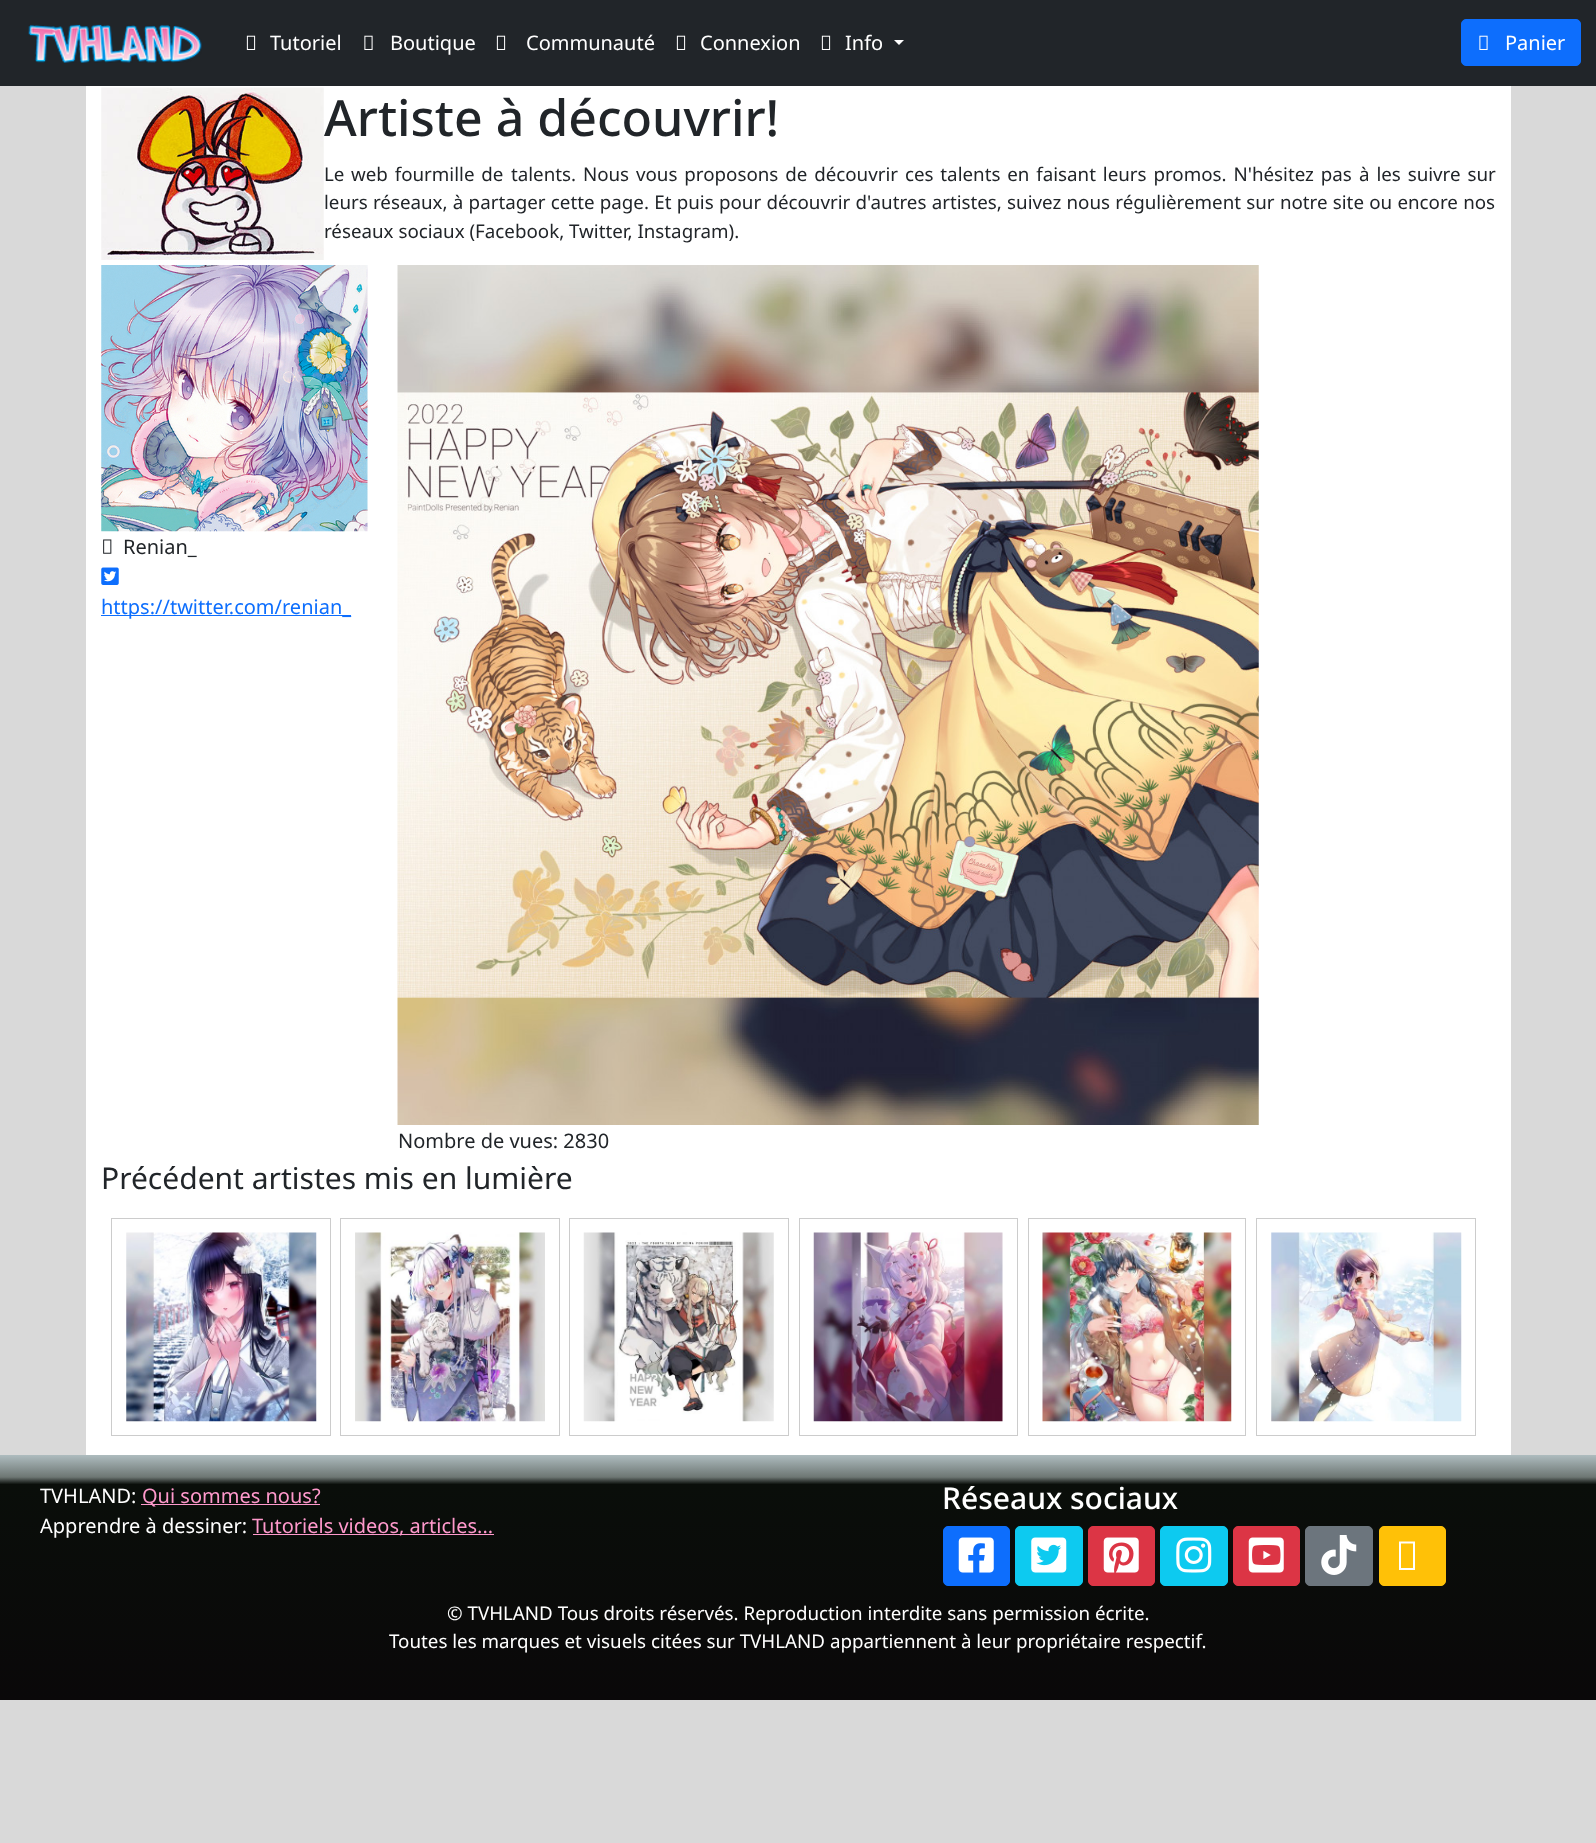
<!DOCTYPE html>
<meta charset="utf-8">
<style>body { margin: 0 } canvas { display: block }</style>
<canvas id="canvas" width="1596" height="1843"></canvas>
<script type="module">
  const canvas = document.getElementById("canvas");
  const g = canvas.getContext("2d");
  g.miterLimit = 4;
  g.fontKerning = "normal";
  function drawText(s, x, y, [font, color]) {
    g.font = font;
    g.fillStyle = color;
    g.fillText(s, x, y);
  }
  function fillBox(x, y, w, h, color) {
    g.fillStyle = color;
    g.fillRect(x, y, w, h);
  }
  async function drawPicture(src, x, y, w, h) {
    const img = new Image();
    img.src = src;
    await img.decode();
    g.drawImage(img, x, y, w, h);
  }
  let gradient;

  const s1 = ["20px Noto Sans", "#FFFFFF"];
  const s2 = ["500 50px Noto Sans", "#212529"];
  const s3 = ["18.75px Noto Sans", "#212529"];
  const s4 = ["20px Noto Sans", "#212529"];
  const s5 = ["20px Noto Sans", "#0D6EFD"];
  const s6 = ["30px Noto Sans", "#212529"];
  const s7 = ["20px Noto Sans", "#FF99CC"];
  const s8 = ["500 30px Noto Sans", "#FFFFFF"];
  const s9 = ["18.75px Noto Sans", "#FFFFFF"];

  fillBox(0, 0, 1596, 1843, "#D9D9D9");
  fillBox(0, 0, 1596, 86, "#212529");
  await drawPicture("pic1.png", 28, 24, 174, 39);
  await drawPicture("pic2.png", 246, 35, 10, 15);
  drawText("Tutoriel", 270, 50, s1);
  await drawPicture("pic3.png", 364, 35, 9, 15);
  drawText("Boutique", 390, 50, s1);
  await drawPicture("pic2.png", 496, 35, 10, 15);
  drawText("Communauté", 526, 50, s1);
  await drawPicture("pic2.png", 676, 35, 10, 15);
  drawText("Connexion", 700, 50, s1);
  await drawPicture("pic2.png", 821, 35, 10, 15);
  drawText("Info", 845, 50, s1);
  g.beginPath();
  g.moveTo(894, 40);
  g.lineTo(904, 40);
  g.lineTo(899, 45);
  g.closePath();
  g.fill();
  g.fillStyle = "#0D6EFD";
  g.beginPath();
  g.roundRect(1461.5, 19.5, 119, 46, 4.5);
  g.fill();
  g.strokeStyle = "#0D6EFD";
  g.stroke();
  await drawPicture("pic4.png", 1479, 35, 9, 15);
  drawText("Panier", 1505, 50, s1);
  fillBox(86, 86, 1425, 1369, "#FFFFFF");
  await drawPicture("pic5.png", 101, 87, 223, 173);
  drawText("Artiste à découvrir!", 324, 136, s2);
  drawText("Le", 324, 181, s3);
  g.wordSpacing = "2px";
  drawText("web fourmille de", 351, 181, s3);
  drawText("talents. Nous vous proposons de découvrir ces talents en faisant leurs promos. N'hésitez pas", 511, 181, s3);
  drawText("à les suivre sur", 1359, 181, s3);
  g.wordSpacing = "0.4px";
  drawText("leurs réseaux, à partager cette page. Et puis pour découvrir d'autres artistes, suivez nous régulièrement sur notre site ou encore nos", 324, 209, s3);
  g.wordSpacing = "0px";
  drawText("réseaux sociaux (Facebook, Twitter, Instagram).", 324, 238, s3);
  await drawPicture("pic6.png", 101, 265, 267, 267);
  await drawPicture("pic7.png", 103, 539, 9, 15);
  drawText("Renian_", 123, 554, s4);
  await drawPicture("pic8.png", 101, 567, 18, 18);
  fillBox(101, 615, 250, 1, "#0D6EFD");
  drawText("https://twitter.com/renian_", 101, 614, s5);
  await drawPicture("pic9.png", 397, 265, 862, 860);
  drawText("Nombre de vues: 2830", 398, 1148, s4);
  drawText("Précédent artistes mis en lumière", 101, 1189, s6);
  g.strokeStyle = "#CCCCCC";
  g.strokeRect(111.5, 1218.5, 219, 217);
  await drawPicture("pic10.png", 126, 1232, 191, 190);
  g.strokeRect(340.5, 1218.5, 219, 217);
  await drawPicture("pic11.png", 355, 1232, 190, 190);
  g.strokeRect(569.5, 1218.5, 219, 217);
  await drawPicture("pic12.png", 583, 1232, 191, 190);
  g.strokeRect(799.5, 1218.5, 218, 217);
  await drawPicture("pic13.png", 813, 1232, 190, 190);
  g.strokeRect(1028.5, 1218.5, 217, 217);
  await drawPicture("pic14.png", 1042, 1232, 190, 190);
  g.strokeRect(1256.5, 1218.5, 219, 217);
  await drawPicture("pic15.png", 1271, 1232, 191, 190);
  gradient = g.createLinearGradient(798, 1455, 798, 1700);
  gradient.addColorStop(0, "#AEBCBF");
  gradient.addColorStop(0.09, "#6E7774");
  gradient.addColorStop(0.12, "#0A0E0A");
  gradient.addColorStop(1, "#0A0809");
  g.fillStyle = gradient;
  g.fillRect(0, 1455, 1596, 245);
  drawText("TVHLAND:", 40, 1503, s1);
  fillBox(141, 1504, 179, 1, "#FF99CC");
  drawText("Qui sommes nous?", 142, 1503, s7);
  drawText("Apprendre à dessiner:", 40, 1533, s1);
  fillBox(253, 1534, 241, 1, "#FF99CC");
  drawText("Tutoriels videos, articles...", 252, 1533, s7);
  drawText("Réseaux sociaux", 942, 1509, s8);
  g.fillStyle = "#0D6EFD";
  g.beginPath();
  g.roundRect(943.5, 1526.5, 66, 59, 4.5);
  g.fill();
  g.strokeStyle = "#0D6EFD";
  g.stroke();
  await drawPicture("pic16.png", 958, 1537, 36, 36);
  g.fillStyle = "#0DCAF0";
  g.beginPath();
  g.roundRect(1015.5, 1526.5, 67, 59, 4.5);
  g.fill();
  g.strokeStyle = "#0DCAF0";
  g.stroke();
  await drawPicture("pic17.png", 1031, 1537, 36, 36);
  g.fillStyle = "#DC3545";
  g.beginPath();
  g.roundRect(1088.5, 1526.5, 66, 59, 4.5);
  g.fill();
  g.strokeStyle = "#DC3545";
  g.stroke();
  await drawPicture("pic18.png", 1103, 1537, 36, 36);
  g.fillStyle = "#0DCAF0";
  g.beginPath();
  g.roundRect(1160.5, 1526.5, 67, 59, 4.5);
  g.fill();
  g.strokeStyle = "#0DCAF0";
  g.stroke();
  await drawPicture("pic19.png", 1176, 1537, 36, 36);
  g.fillStyle = "#DC3545";
  g.beginPath();
  g.roundRect(1233.5, 1526.5, 66, 59, 4.5);
  g.fill();
  g.strokeStyle = "#DC3545";
  g.stroke();
  await drawPicture("pic20.png", 1248, 1537, 36, 36);
  g.fillStyle = "#6C757D";
  g.beginPath();
  g.roundRect(1305.5, 1526.5, 67, 59, 4.5);
  g.fill();
  g.strokeStyle = "#6C757D";
  g.stroke();
  await drawPicture("pic21.png", 1321, 1535, 36, 40);
  g.fillStyle = "#FFC107";
  g.beginPath();
  g.roundRect(1379.5, 1526.5, 66, 59, 4.5);
  g.fill();
  g.strokeStyle = "#FFC107";
  g.stroke();
  g.fillStyle = "#FFFFFF";
  g.beginPath();
  g.moveTo(1399, 1570);
  g.lineTo(1399, 1541.5);
  g.lineTo(1415, 1541.5);
  g.lineTo(1415, 1570);
  g.closePath();
  g.moveTo(1401, 1568);
  g.lineTo(1413, 1568);
  g.lineTo(1413, 1543.5);
  g.lineTo(1401, 1543.5);
  g.closePath();
  g.fill();
  drawText("© TVHLAND Tous droits réservés. Reproduction interdite sans permission écrite.", 447, 1620, s9);
  drawText("Toutes les marques et visuels citées sur TVHLAND appartiennent à leur propriétaire respectif.", 389, 1648, s9);
</script>
